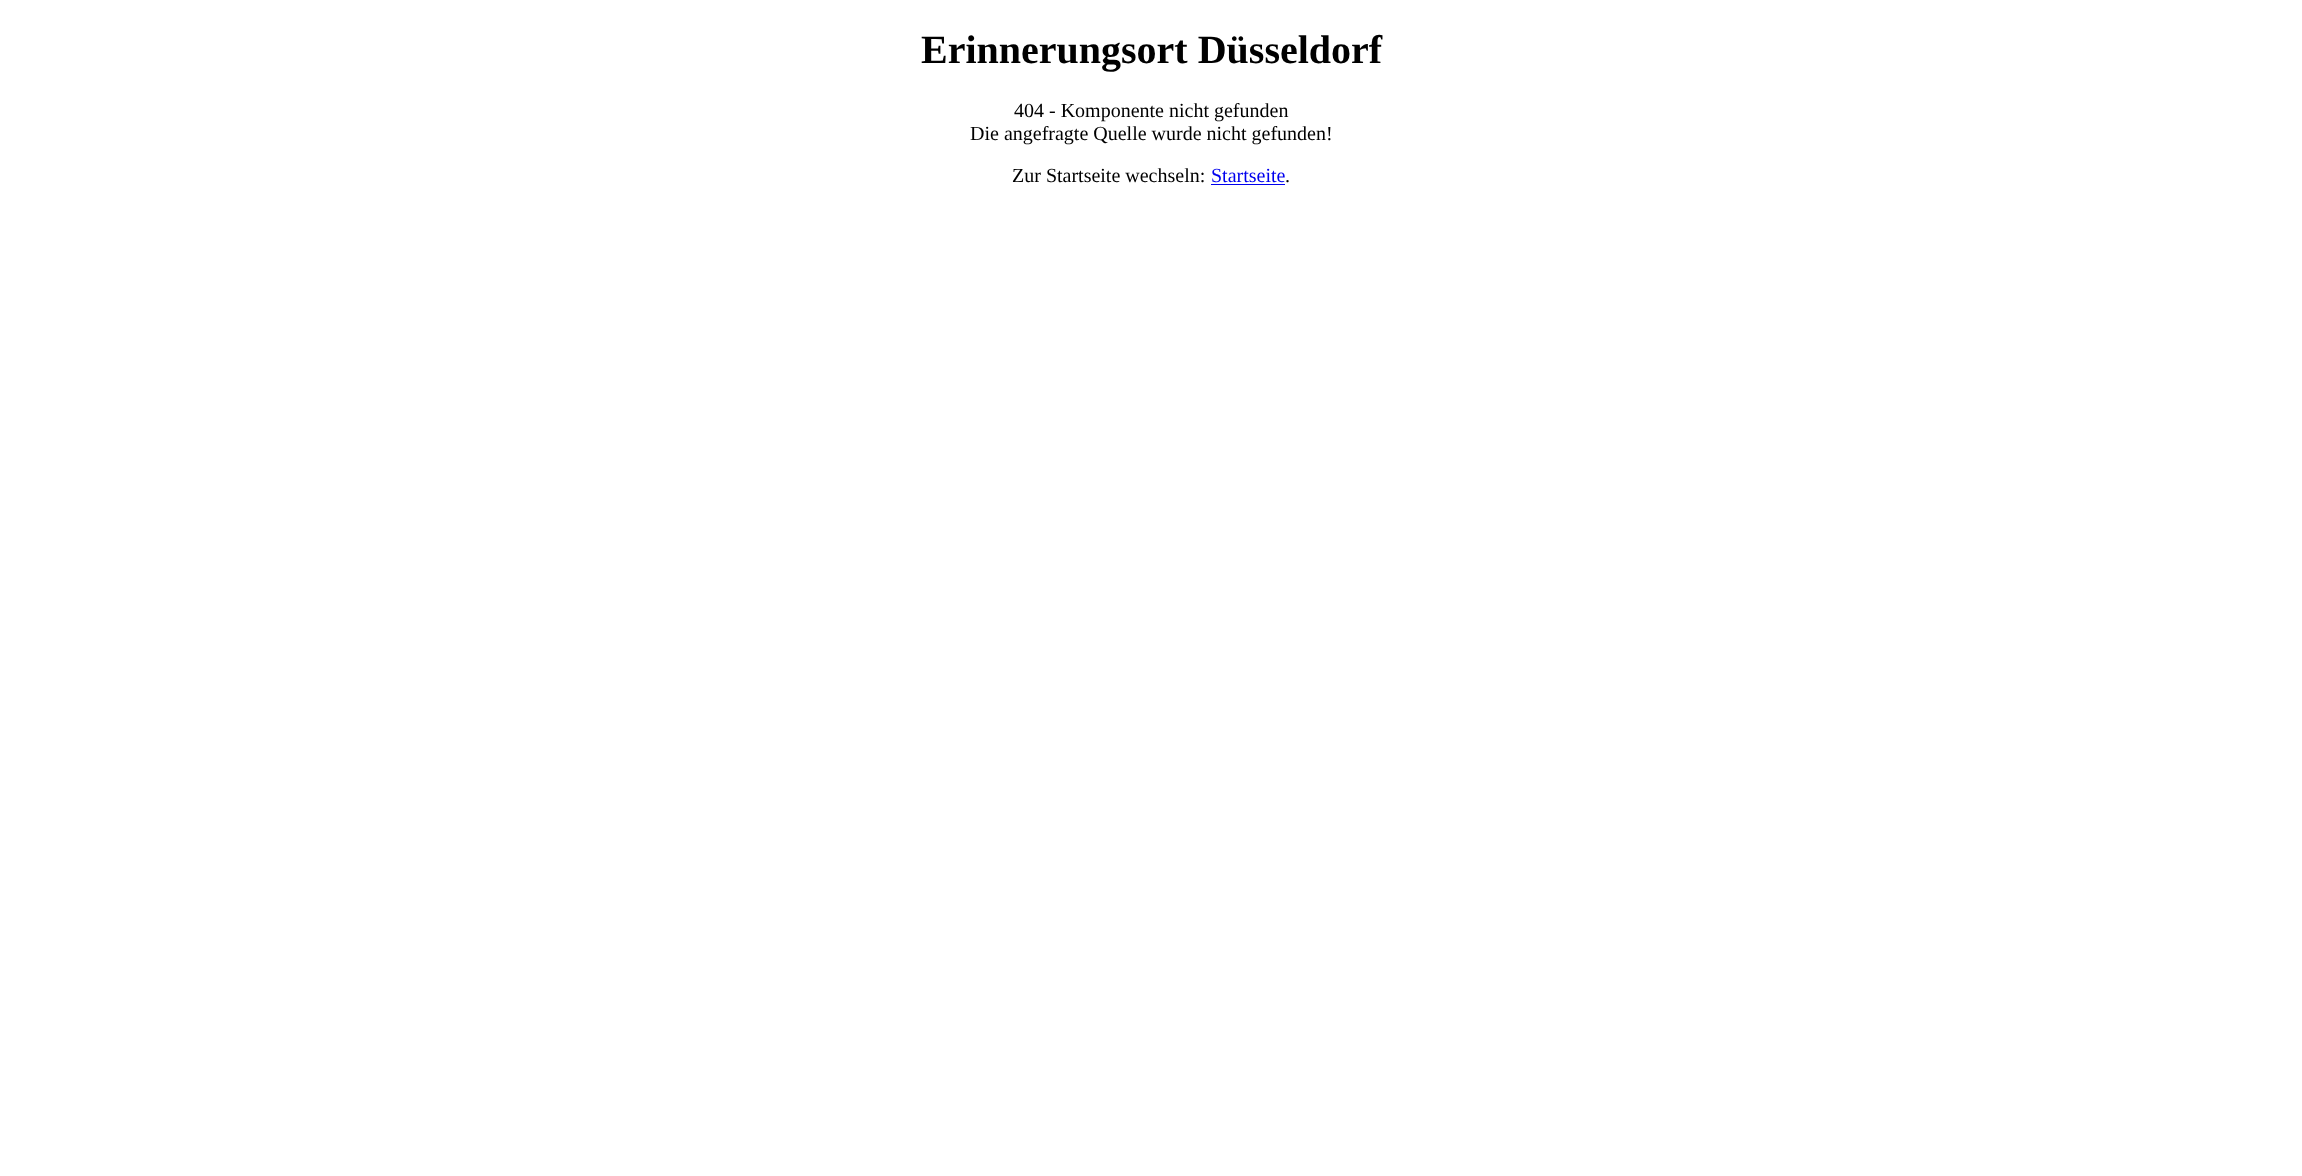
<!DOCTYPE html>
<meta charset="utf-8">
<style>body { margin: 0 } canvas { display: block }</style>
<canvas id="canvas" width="2302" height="1176"></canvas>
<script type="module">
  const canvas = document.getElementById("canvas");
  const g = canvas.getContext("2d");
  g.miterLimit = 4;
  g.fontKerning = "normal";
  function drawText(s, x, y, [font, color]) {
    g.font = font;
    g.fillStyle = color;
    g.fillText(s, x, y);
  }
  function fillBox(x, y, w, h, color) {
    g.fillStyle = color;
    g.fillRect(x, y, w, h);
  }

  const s1 = ["bold 40px Liberation Serif", "#000000"];
  const s2 = ["20px Liberation Serif", "#000000"];
  const s3 = ["20px Liberation Serif", "#0000EE"];

  fillBox(0, 0, 2302, 1176, "#FFFFFF");
  drawText("Erinnerungsort Düsseldorf", 921, 63, s1);
  drawText("404 - Komponente nicht gefunden", 1014, 117, s2);
  drawText("Die angefragte Quelle wurde nicht gefunden!", 970, 140, s2);
  drawText("Zur Startseite wechseln:", 1012, 182, s2);
  drawText("Startseite", 1211, 182, s3);
  fillBox(1211, 184, 74, 1, "#0000EE");
  drawText(".", 1285, 182, s2);
</script>
